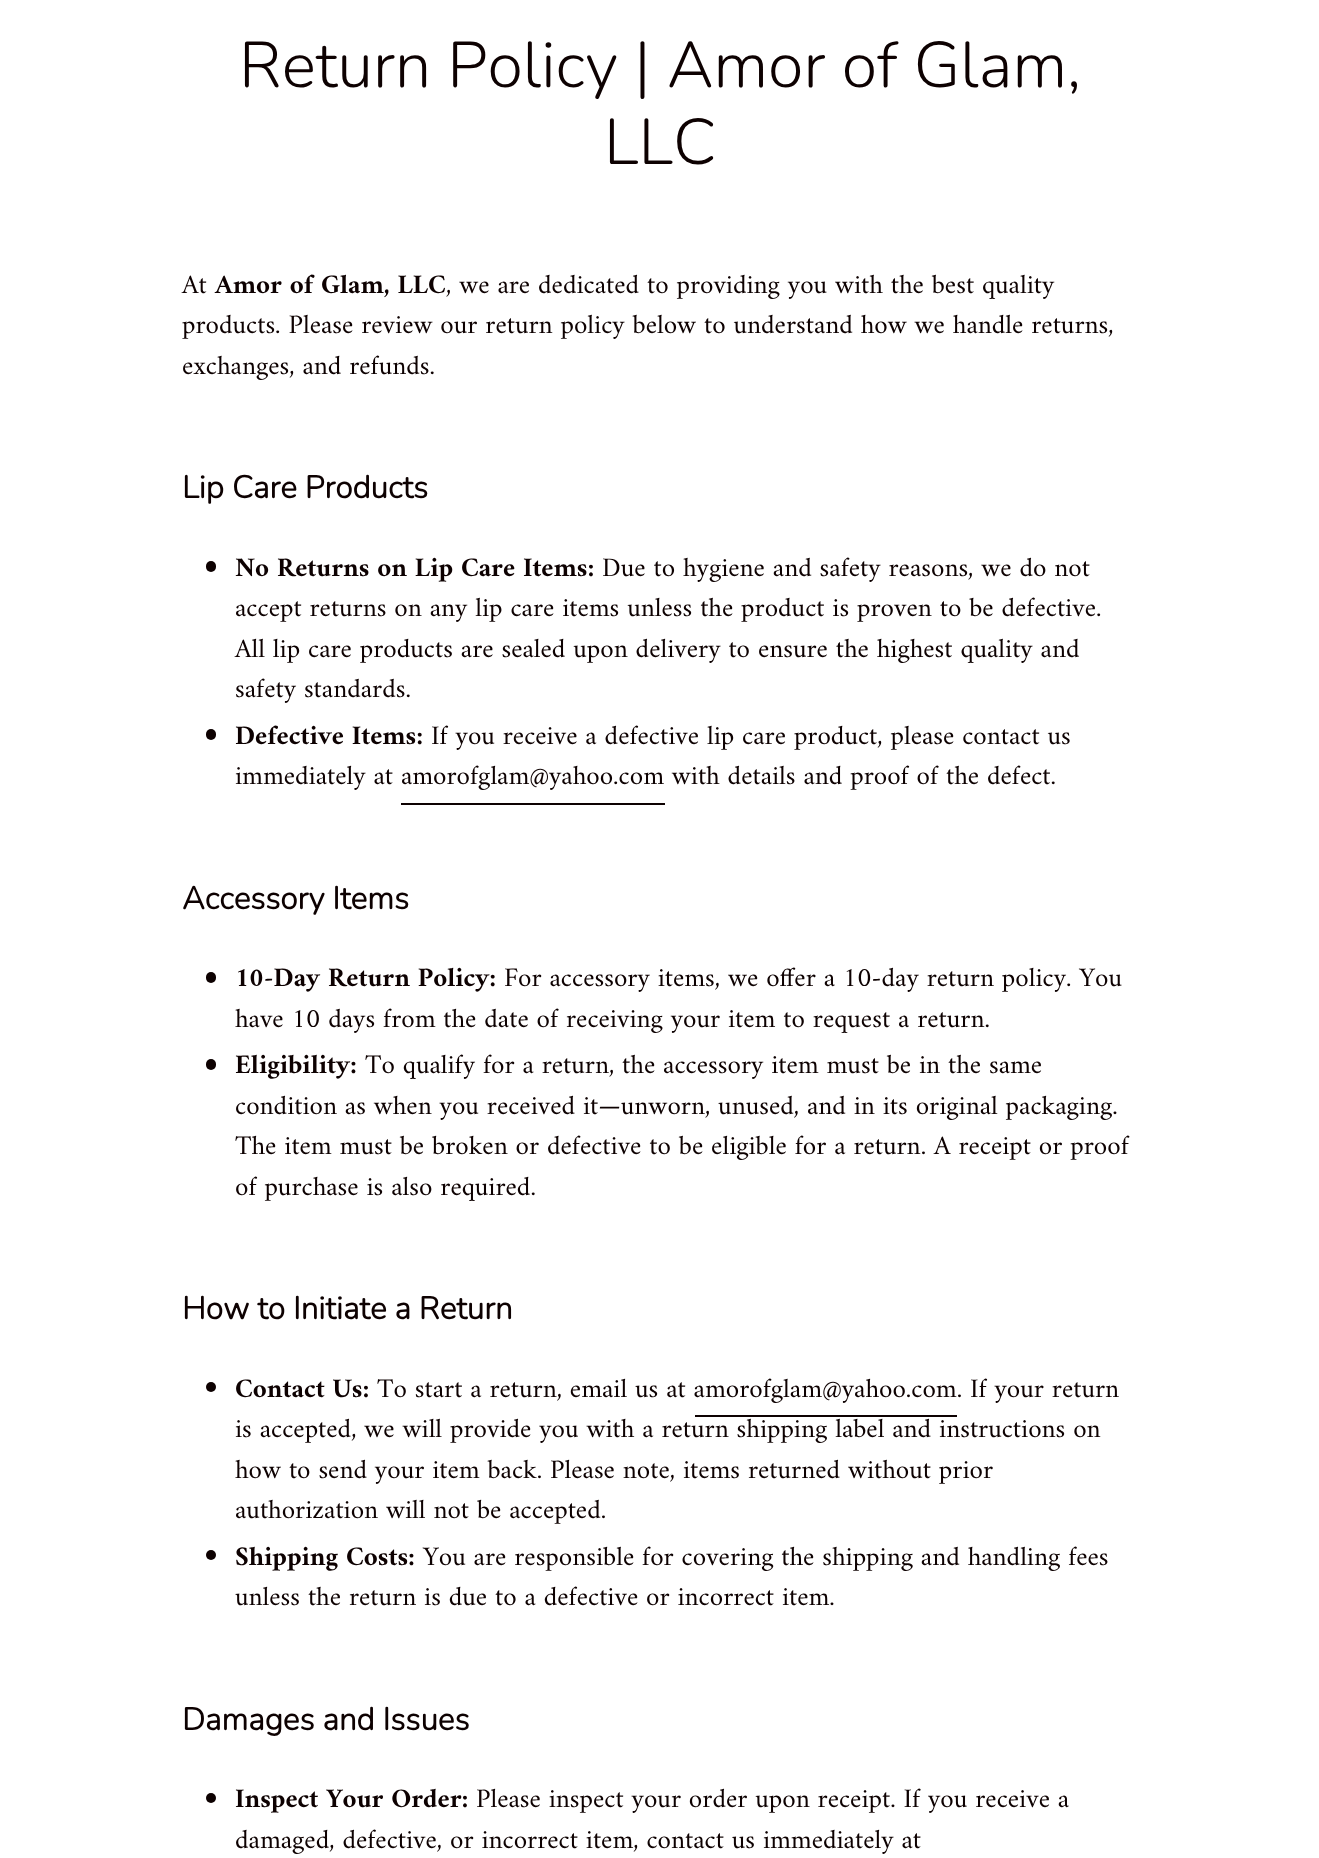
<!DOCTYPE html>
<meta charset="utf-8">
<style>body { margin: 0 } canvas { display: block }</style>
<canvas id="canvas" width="1319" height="1858"></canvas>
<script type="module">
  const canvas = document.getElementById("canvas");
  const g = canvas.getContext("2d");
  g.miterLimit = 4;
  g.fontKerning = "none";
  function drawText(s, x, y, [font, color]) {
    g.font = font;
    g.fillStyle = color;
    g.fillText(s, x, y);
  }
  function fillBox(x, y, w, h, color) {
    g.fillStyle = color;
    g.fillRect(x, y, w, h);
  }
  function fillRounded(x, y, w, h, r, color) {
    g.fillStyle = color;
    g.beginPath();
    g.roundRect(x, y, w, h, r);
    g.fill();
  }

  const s1 = ["300 64.5px Nunito", "#0D0101"];
  const s2 = ["27px Amiri", "#0D0101"];
  const s3 = ["bold 27px Amiri", "#0D0101"];
  const s4 = ["bold 31.5px Nunito", "#0D0101"];

  fillBox(0, 0, 1319, 1858, "#FFFFFF");
  drawText("Return Policy | Amor of Glam,", 239, 87, s1);
  drawText("LLC", 604, 164, s1);
  drawText("At", 182, 293, s2);
  drawText("Amor of Glam, LLC", 215, 293, s3);
  drawText(", we are dedicated to providing you with the best quality", 446, 293, s2);
  drawText("products. Please review our return policy below to understand how we handle returns,", 182, 333, s2);
  drawText("exchanges, and refunds.", 182, 374, s2);
  drawText("Lip Care Products", 182, 498, s4);
  fillRounded(206, 561, 10, 11, 5, "#0D0101");
  drawText("No Returns on Lip Care Items:", 235, 576, s3);
  drawText("Due to hygiene and safety reasons, we do not", 602, 576, s2);
  drawText("accept returns on any lip care items unless the product is proven to be defective.", 235, 616, s2);
  drawText("All lip care products are sealed upon delivery to ensure the highest quality and", 235, 657, s2);
  drawText("safety standards.", 235, 697, s2);
  fillRounded(206, 729, 10, 11, 5, "#0D0101");
  drawText("Defective Items:", 235, 744, s3);
  drawText("If you receive a defective lip care product, please contact us", 431, 744, s2);
  drawText("immediately at amorofglam@yahoo.com with details and proof of the defect.", 235, 784, s2);
  fillBox(401, 803, 264, 2, "#0D0101");
  drawText("Accessory Items", 182, 909, s4);
  fillRounded(206, 972, 10, 11, 5, "#0D0101");
  drawText("10-Day Return Policy:", 235, 986, s3);
  drawText("For accessory items, we offer a 10-day return policy. You", 504, 986, s2);
  drawText("have 10 days from the date of receiving your item to request a return.", 235, 1027, s2);
  fillRounded(206, 1059, 10, 11, 5, "#0D0101");
  drawText("Eligibility:", 235, 1073, s3);
  drawText("To qualify for a return, the accessory item must be in the same", 365, 1073, s2);
  drawText("condition as when you received it—unworn, unused, and in its original packaging.", 235, 1114, s2);
  drawText("The item must be broken or defective to be eligible for a return. A receipt or proof", 235, 1154, s2);
  drawText("of purchase is also required.", 235, 1195, s2);
  drawText("How to Initiate a Return", 182, 1319, s4);
  g.beginPath();
  g.arc(211, 1387, 5, 0, Math.PI * 2);
  g.fill();
  drawText("Contact Us:", 235, 1397, s3);
  drawText("To start a return, email us at amorofglam@yahoo.com. If your return", 377, 1397, s2);
  fillBox(695, 1415, 262, 2, "#0D0101");
  drawText("is accepted, we will provide you with a return shipping label and instructions on", 235, 1437, s2);
  drawText("how to send your item back. Please note, items returned without prior", 235, 1478, s2);
  drawText("authorization will not be accepted.", 235, 1518, s2);
  g.beginPath();
  g.arc(211, 1555, 5, 0, Math.PI * 2);
  g.fill();
  drawText("Shipping Costs:", 235, 1565, s3);
  drawText("You are responsible for covering the shipping and handling fees", 423, 1565, s2);
  drawText("unless the return is due to a defective or incorrect item.", 235, 1605, s2);
  drawText("Damages and Issues", 182, 1730, s4);
  g.beginPath();
  g.arc(211, 1798, 5, 0, Math.PI * 2);
  g.fill();
  drawText("Inspect Your Order:", 235, 1807, s3);
  drawText("Please inspect your order upon receipt. If you receive a", 476, 1807, s2);
  drawText("damaged, defective, or incorrect item, contact us immediately at", 235, 1848, s2);
</script>
